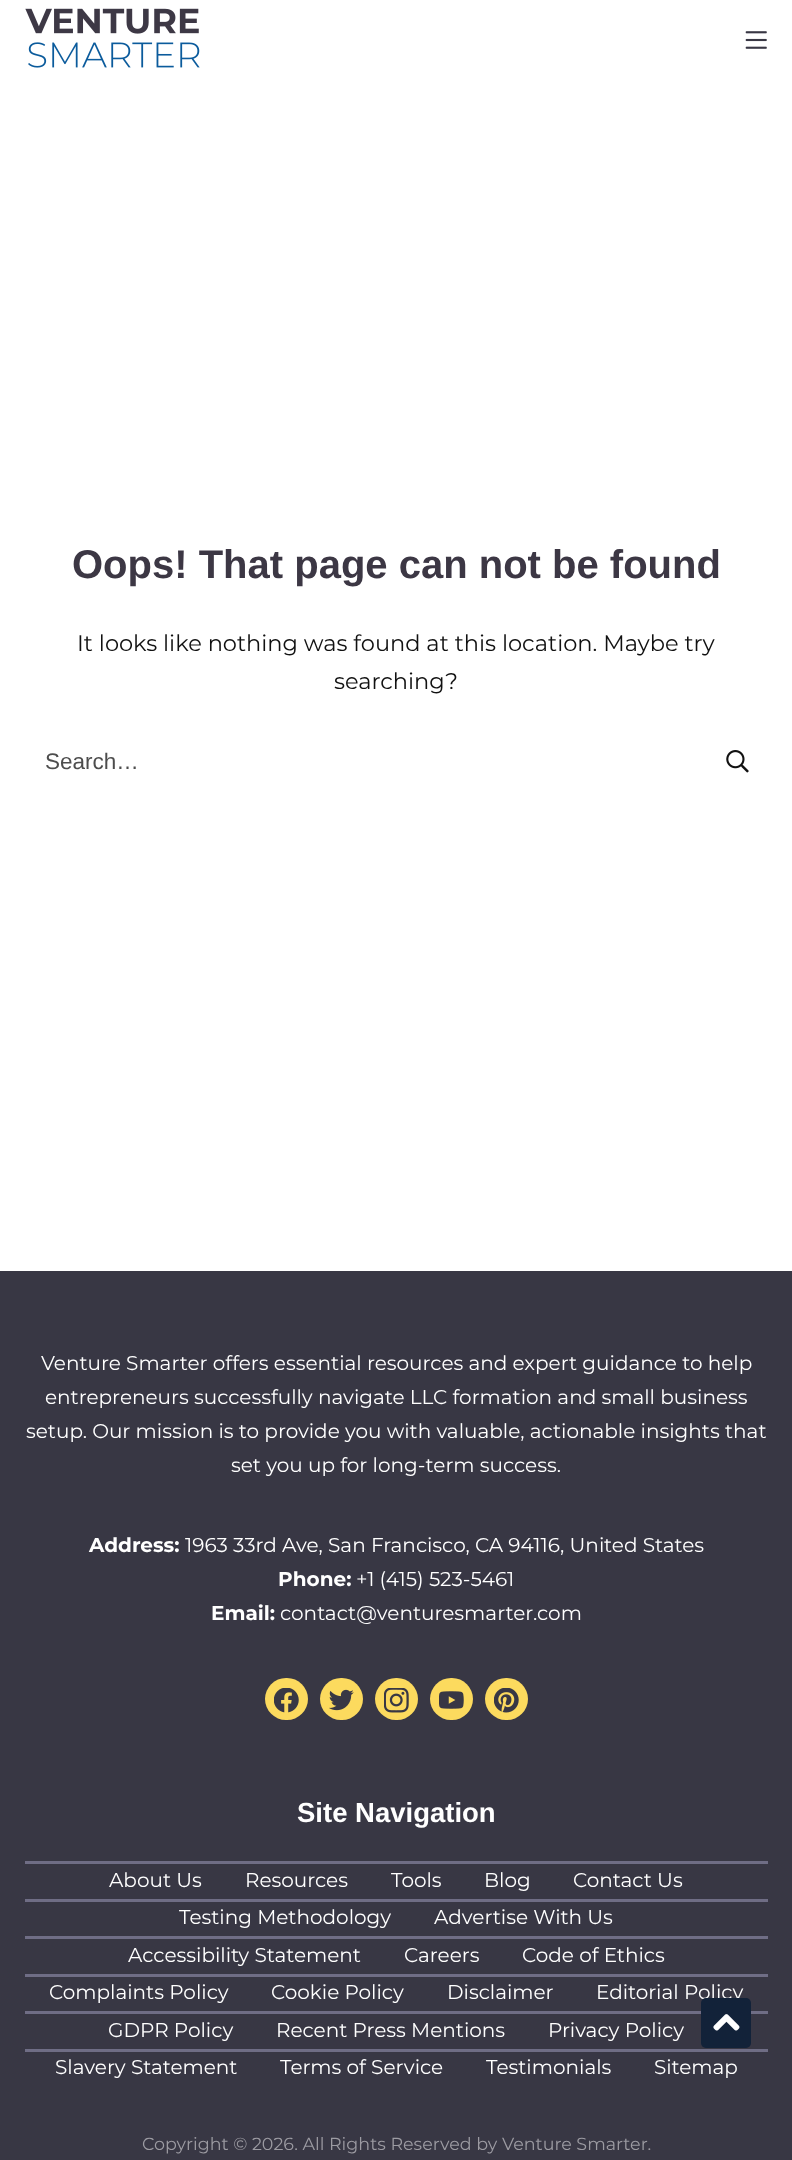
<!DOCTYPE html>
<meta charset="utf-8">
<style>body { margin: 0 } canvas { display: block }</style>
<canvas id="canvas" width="792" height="2160"></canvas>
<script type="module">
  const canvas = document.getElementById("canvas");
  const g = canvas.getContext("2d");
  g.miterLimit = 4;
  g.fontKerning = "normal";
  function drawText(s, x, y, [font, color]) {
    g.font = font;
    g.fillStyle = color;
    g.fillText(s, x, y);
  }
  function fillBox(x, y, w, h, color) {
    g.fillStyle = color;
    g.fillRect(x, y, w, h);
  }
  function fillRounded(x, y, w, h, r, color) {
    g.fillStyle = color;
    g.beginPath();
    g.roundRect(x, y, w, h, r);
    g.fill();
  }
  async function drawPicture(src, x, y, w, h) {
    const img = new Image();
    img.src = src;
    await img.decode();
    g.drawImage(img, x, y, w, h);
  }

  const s1 = ["bold 40px Liberation Sans", "#3C3744"];
  const s2 = ["22.5px Montserrat", "#111111"];
  const s3 = ["22.5px Liberation Sans", "#4D4D4D"];
  const s4 = ["20px Montserrat", "#FFFFFF"];
  const s5 = ["bold 20px Montserrat", "#FFFFFF"];
  const s6 = ["bold 27.5px Liberation Sans", "#FFFFFF"];
  const s7 = ["17.5px Montserrat", "#9C9BA2"];

  fillBox(0, 0, 792, 2160, "#FFFFFF");
  await drawPicture("pic1.png", 25, 8, 175, 60);
  await drawPicture("pic2.png", 745, 31, 22, 18);
  drawText("Oops! That page can not be found", 72, 578, s1);
  drawText("It looks like nothing was found at this location. Maybe try", 77, 651, s2);
  drawText("searching?", 334, 689, s2);
  drawText("Search…", 45, 769, s3);
  await drawPicture("pic3.png", 726, 750, 23, 23);
  fillBox(0, 1271, 792, 889, "#383744");
  drawText("Venture Smarter offers essential resources and expert guidance to help", 41, 1370, s4);
  drawText("entrepreneurs successfully navigate LLC formation and small business", 45, 1404, s4);
  drawText("setup. Our mission is to provide you with valuable, actionable insights that", 26, 1438, s4);
  drawText("set you up for long-term success.", 231, 1472, s4);
  drawText("Address:", 89, 1552, s5);
  drawText("1963 33rd Ave, San Francisco, CA 94116, United States", 185, 1552, s4);
  drawText("Phone:", 278, 1586, s5);
  drawText("+1 (415) 523-5461", 356, 1586, s4);
  drawText("Email:", 211, 1620, s5);
  drawText("contact@venturesmarter.com", 280, 1620, s4);
  fillRounded(265, 1678, 43, 42, 21, "#FCDA5E");
  await drawPicture("pic4.png", 274, 1688, 25, 25);
  fillRounded(320, 1678, 43, 42, 21, "#FCDA5E");
  await drawPicture("pic5.png", 329, 1689, 25, 22);
  fillRounded(375, 1678, 43, 42, 21, "#FCDA5E");
  await drawPicture("pic6.png", 384, 1688, 25, 25);
  fillRounded(430, 1678, 43, 42, 21, "#FCDA5E");
  await drawPicture("pic7.png", 439, 1691, 25, 18);
  fillRounded(485, 1678, 43, 42, 21, "#FCDA5E");
  await drawPicture("pic8.png", 494, 1688, 25, 25);
  drawText("Site Navigation", 297, 1822, s6);
  fillBox(25, 1861, 743, 3, "#6F6D85");
  fillBox(25, 1899, 743, 3, "#6F6D85");
  fillBox(25, 1936, 743, 3, "#6F6D85");
  fillBox(25, 1974, 743, 3, "#6F6D85");
  fillBox(25, 2011, 743, 3, "#6F6D85");
  fillBox(25, 2049, 743, 3, "#6F6D85");
  drawText("About Us", 109, 1887, s4);
  drawText("Resources", 245, 1887, s4);
  drawText("Tools", 391, 1887, s4);
  drawText("Blog", 484, 1887, s4);
  drawText("Contact Us", 573, 1887, s4);
  drawText("Testing Methodology", 179, 1924, s4);
  drawText("Advertise With Us", 434, 1924, s4);
  drawText("Accessibility Statement", 128, 1962, s4);
  drawText("Careers", 404, 1962, s4);
  drawText("Code of Ethics", 522, 1962, s4);
  drawText("Complaints Policy", 49, 1999, s4);
  drawText("Cookie Policy", 271, 1999, s4);
  drawText("Disclaimer", 447, 1999, s4);
  drawText("Editorial Policy", 596, 1999, s4);
  drawText("GDPR Policy", 108, 2037, s4);
  drawText("Recent Press Mentions", 276, 2037, s4);
  drawText("Privacy Policy", 548, 2037, s4);
  drawText("Slavery Statement", 55, 2074, s4);
  drawText("Terms of Service", 280, 2074, s4);
  drawText("Testimonials", 486, 2074, s4);
  drawText("Sitemap", 654, 2074, s4);
  drawText("Copyright © 2026. All Rights Reserved by Venture Smarter.", 142, 2150, s7);
  fillRounded(701, 1998, 50, 50, 5, "#122239");
  await drawPicture("pic9.png", 713, 2014, 27, 17);
</script>
